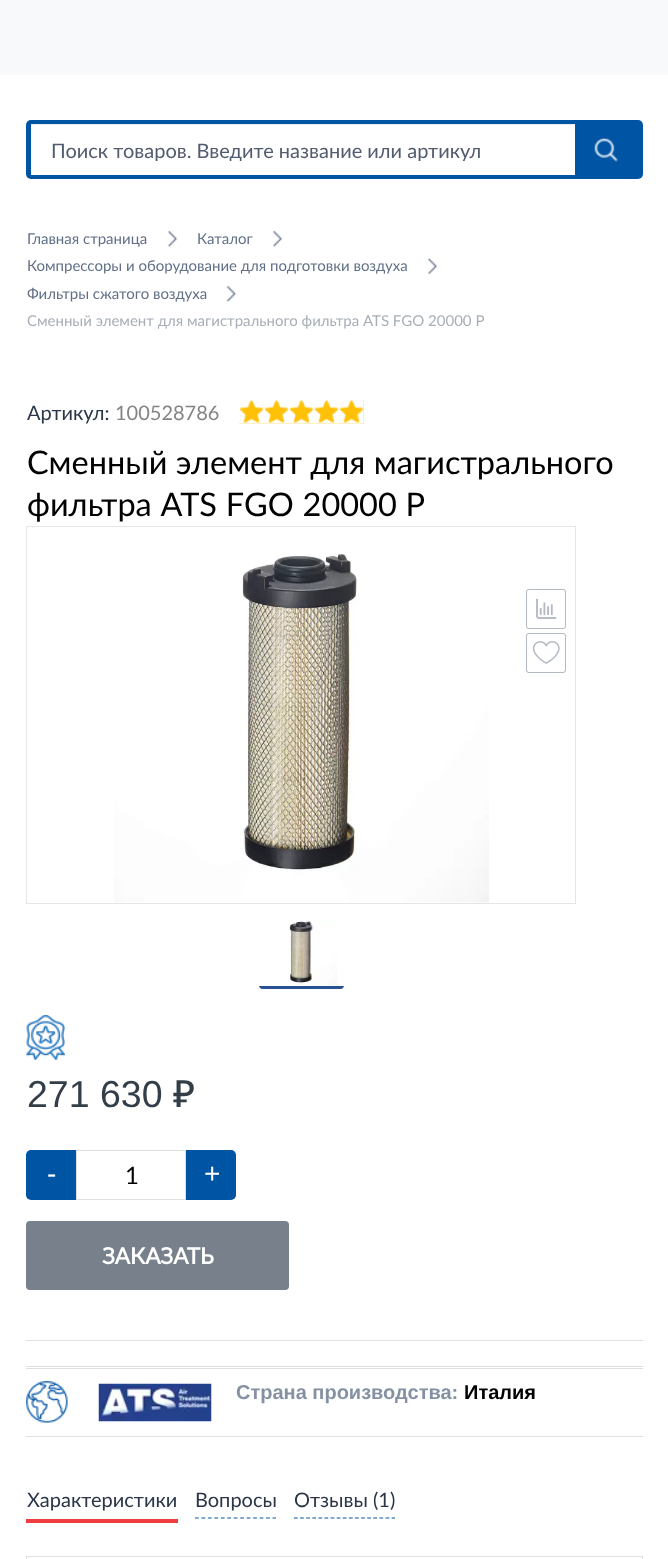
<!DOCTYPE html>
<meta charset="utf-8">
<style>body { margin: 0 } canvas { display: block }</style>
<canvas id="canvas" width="668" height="1559"></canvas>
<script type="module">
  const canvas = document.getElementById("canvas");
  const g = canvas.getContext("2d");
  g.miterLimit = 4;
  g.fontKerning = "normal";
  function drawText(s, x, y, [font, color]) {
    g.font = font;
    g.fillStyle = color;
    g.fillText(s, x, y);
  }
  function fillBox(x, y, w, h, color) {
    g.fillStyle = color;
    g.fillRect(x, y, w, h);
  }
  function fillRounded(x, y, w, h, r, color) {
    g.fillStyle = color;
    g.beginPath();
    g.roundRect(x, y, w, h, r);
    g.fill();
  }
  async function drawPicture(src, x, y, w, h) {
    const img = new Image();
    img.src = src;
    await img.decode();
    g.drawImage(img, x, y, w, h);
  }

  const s1 = ["20px Lato", "#525C6F"];
  const s2 = ["15px Lato", "#617087"];
  const s3 = ["15px Lato", "#A7AEB6"];
  const s4 = ["20px Lato", "#2B3648"];
  const s5 = ["20px Lato", "#848484"];
  const s6 = ["32.5px Lato", "#000000"];
  const s7 = ["37.5px Liberation Sans", "#333E48"];
  const s8 = ["500 37.5px Noto Sans", "#333E48"];
  const s9 = ["28px Liberation Sans", "#FFFFFF"];
  const s10 = ["24px Lato", "#000000"];
  const s11 = ["bold 22.5px Lato", "#FFFFFF"];
  const s12 = ["bold 20px Liberation Sans", "#8591A3"];
  const s13 = ["bold 20px Liberation Sans", "#000000"];

  fillBox(0, 0, 668, 1559, "#FFFFFF");
  fillBox(0, 0, 668, 75, "#F8F9FA");
  fillRounded(26, 120, 617, 59, 5, "#0054A4");
  fillBox(31, 125, 544, 50, "#FFFFFF");
  fillBox(31, 124, 544, 1, "#ECECEC");
  g.save();
  g.beginPath();
  g.rect(50, 138, 513, 23);
  g.clip();
  drawText("Поиск товаров. Введите название или артикул", 51, 158, s1);
  g.restore();
  await drawPicture("pic1.png", 594, 138, 24, 24);
  drawText("Главная страница", 27, 244, s2);
  await drawPicture("pic2.png", 167, 231, 11, 16);
  drawText("Каталог", 197, 244, s2);
  await drawPicture("pic3.png", 272, 231, 11, 16);
  drawText("Компрессоры и оборудование для подготовки воздуха", 27, 271, s2);
  await drawPicture("pic4.png", 427, 258, 11, 16);
  drawText("Фильтры сжатого воздуха", 27, 299, s2);
  await drawPicture("pic5.png", 226, 286, 11, 16);
  drawText("Сменный элемент для магистрального фильтра ATS FGO 20000 P", 27, 326, s3);
  drawText("Артикул:", 27, 420, s4);
  drawText("100528786", 115, 420, s5);
  fillBox(239, 400, 125, 24, "#FFC107");
  await drawPicture("pic6.png", 239, 400, 125, 24);
  drawText("Сменный элемент для магистрального", 27, 474, s6);
  g.wordSpacing = "0.5px";
  drawText("фильтра ATS FGO 20000 P", 27, 516, s6);
  g.strokeStyle = "#E6E6E6";
  g.strokeRect(26.5, 526.5, 549, 377);
  await drawPicture("pic7.png", 114, 553, 375, 350);
  await drawPicture("pic8.png", 526, 589, 40, 40);
  await drawPicture("pic9.png", 526, 633, 40, 40);
  await drawPicture("pic10.png", 289, 920, 49, 66);
  g.save();
  g.beginPath();
  g.roundRect(259, 916, 85, 73, 4);
  g.clip();
  fillBox(259, 986, 85, 3, "#285193");
  g.restore();
  await drawPicture("pic11.png", 26, 1015, 39, 45);
  g.wordSpacing = "0px";
  drawText("271 630", 27, 1107, s7);
  drawText("₽", 173, 1107, s8);
  g.fillStyle = "#0054A4";
  g.beginPath();
  g.roundRect(26, 1150, 50, 50, [5, 0, 0, 5]);
  g.fill();
  drawText("-", 47, 1183, s9);
  g.strokeStyle = "#DEE0DD";
  g.strokeRect(76.5, 1150.5, 109, 49);
  drawText("1", 125, 1184, s10);
  g.fillStyle = "#0054A4";
  g.beginPath();
  g.roundRect(186, 1150, 50, 50, [0, 5, 5, 0]);
  g.fill();
  drawText("+", 204, 1183, s9);
  fillRounded(26, 1221, 263, 69, 4, "#78808C");
  drawText("ЗАКАЗАТЬ", 102, 1264, s11);
  fillBox(26, 1340, 617, 1, "#DEE0DD");
  fillBox(26, 1366, 617, 1, "#DEE0DD");
  fillBox(26, 1368, 617, 1, "#DEE0DD");
  fillBox(26, 1436, 617, 1, "#DEE0DD");
  await drawPicture("pic12.png", 26, 1381, 42, 42);
  await drawPicture("pic13.png", 98, 1383, 114, 39);
  drawText("Страна производства:", 236, 1399, s12);
  drawText("Италия", 464, 1399, s13);
  drawText("Характеристики", 27, 1507, s4);
  fillBox(26, 1519, 152, 4, "#EF3E42");
  g.beginPath();
  g.moveTo(195, 1518);
  g.lineTo(276, 1518);
  g.strokeStyle = "#0054A4";
  g.lineWidth = 1.2;
  g.setLineDash([3.75, 2.71]);
  g.stroke();
  drawText("Вопросы", 195, 1507, s4);
  g.beginPath();
  g.moveTo(294, 1518);
  g.lineTo(395, 1518);
  g.setLineDash([3.75, 2.35]);
  g.stroke();
  drawText("Отзывы (1)", 294, 1507, s4);
  g.strokeStyle = "#DEE0DD";
  g.lineWidth = 1;
  g.setLineDash([]);
  g.strokeRect(26.5, 1556.5, 616, 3);
</script>
